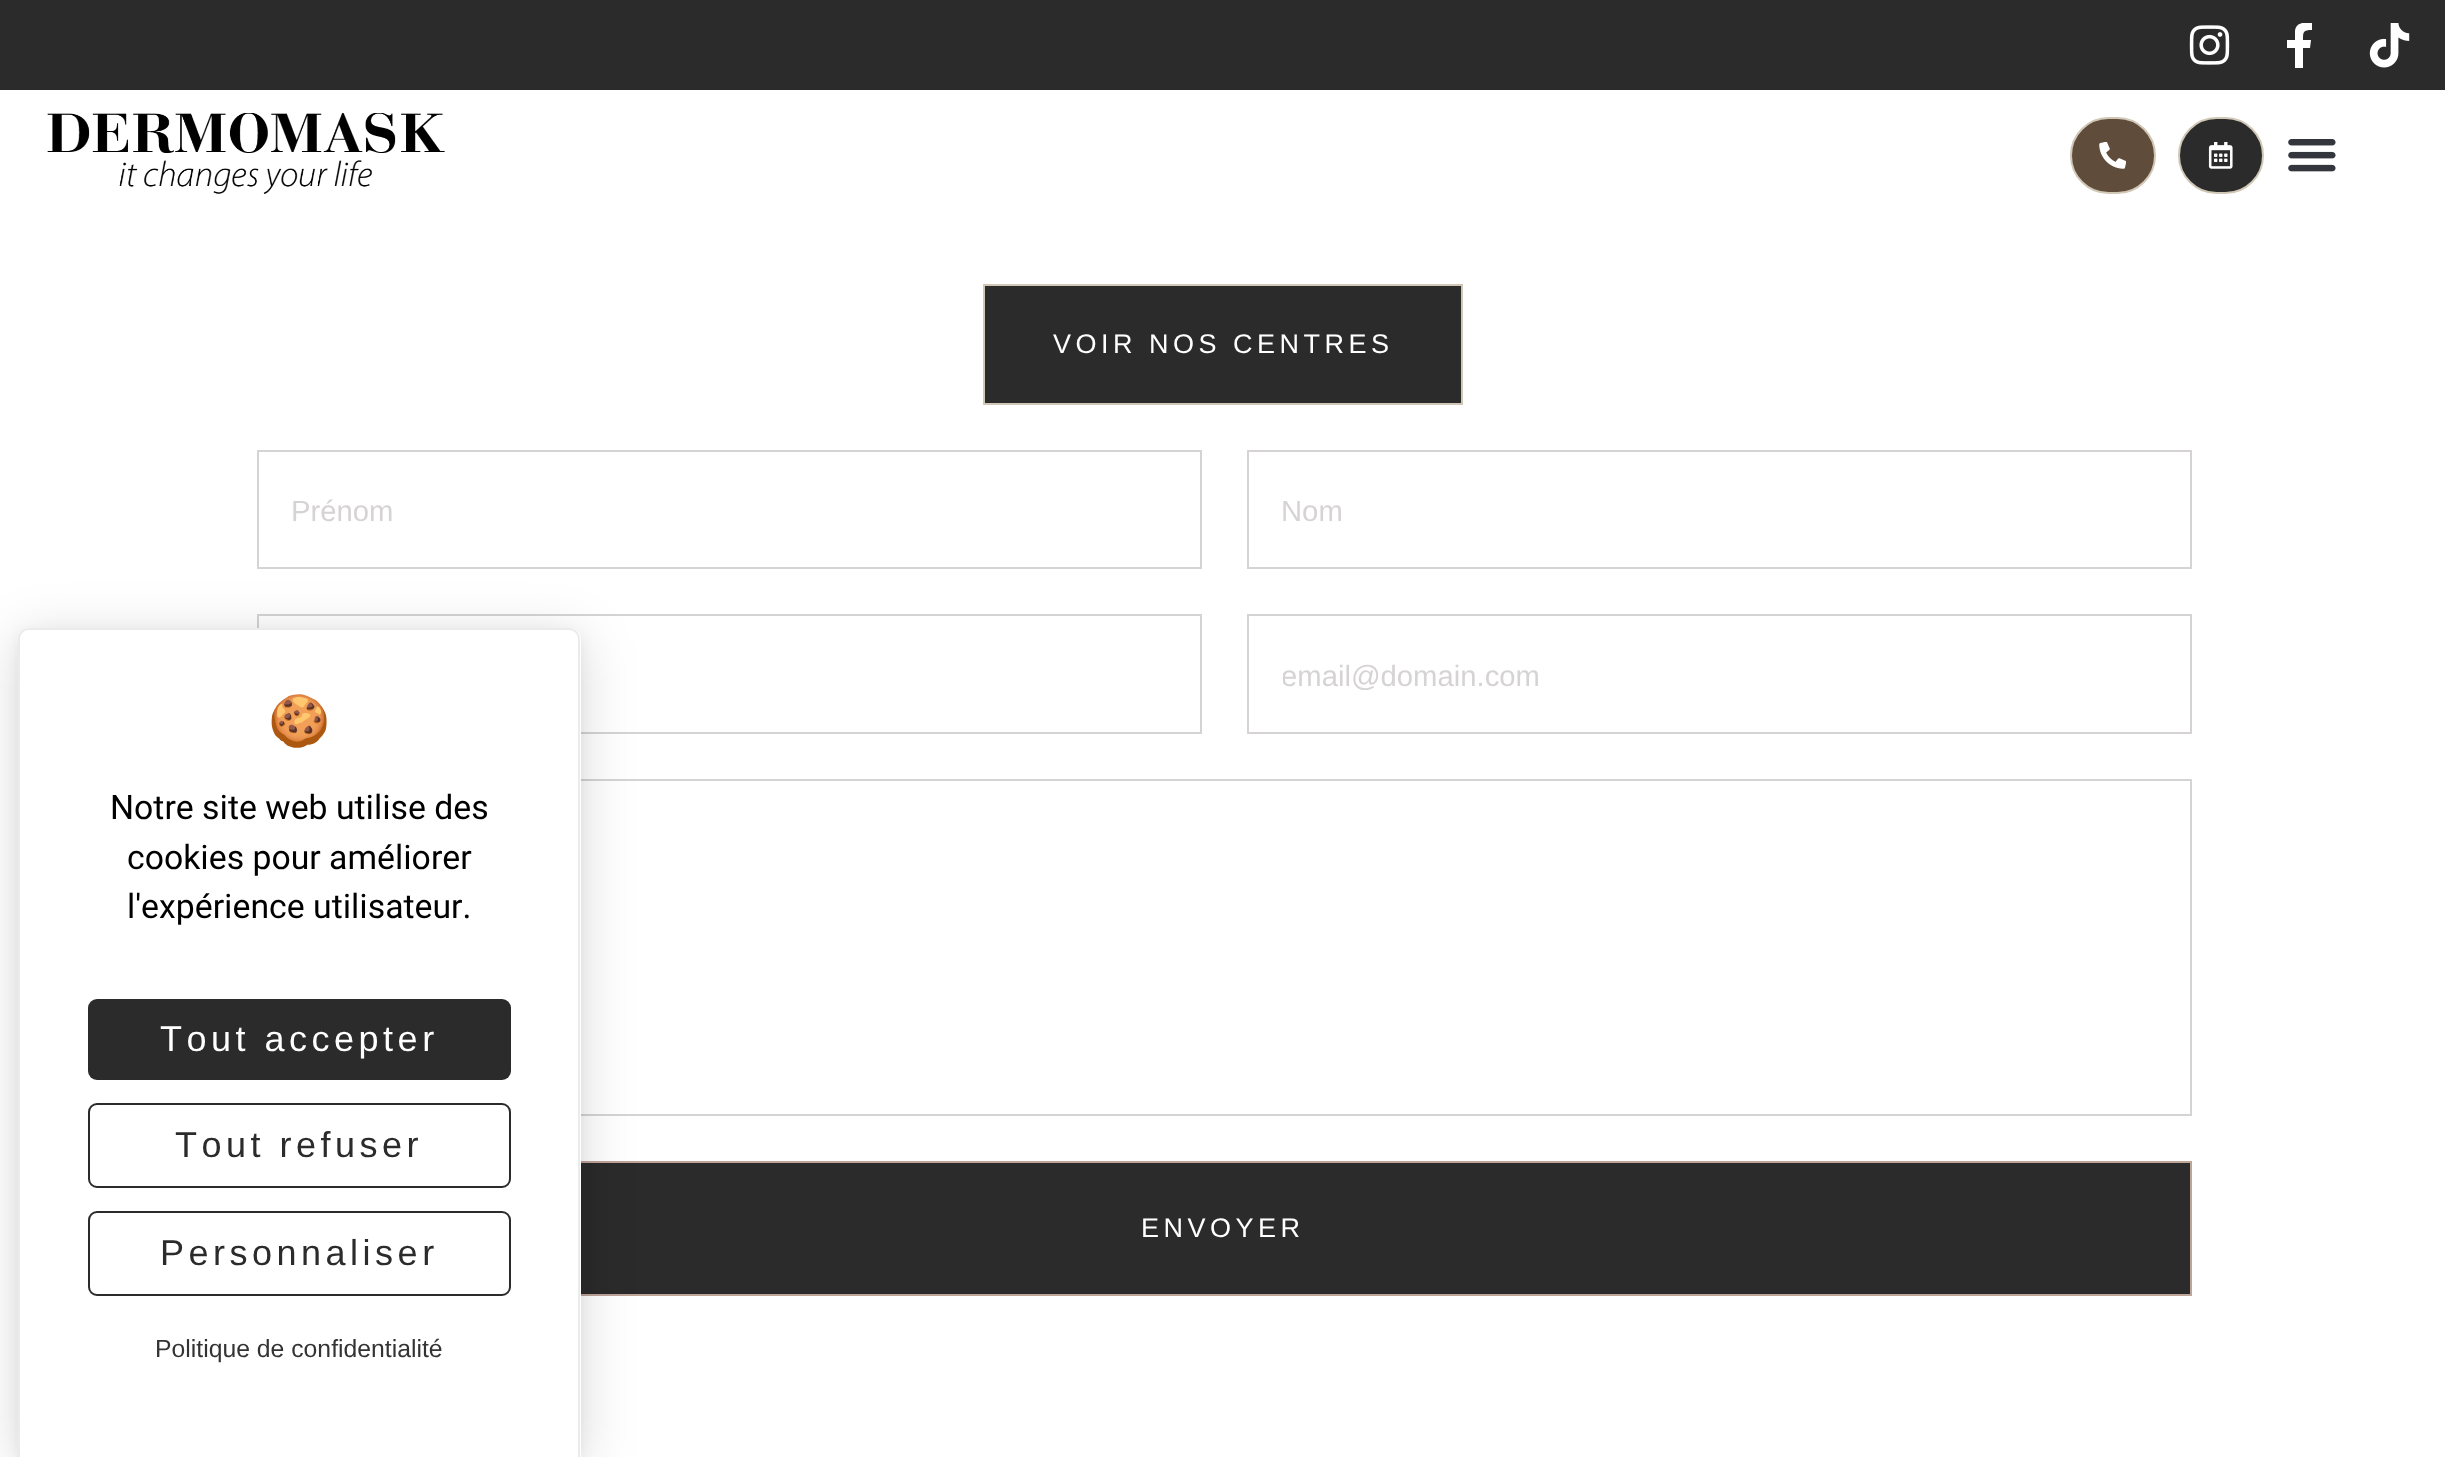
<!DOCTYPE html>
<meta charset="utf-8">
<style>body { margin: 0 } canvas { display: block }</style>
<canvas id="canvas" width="2445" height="1457"></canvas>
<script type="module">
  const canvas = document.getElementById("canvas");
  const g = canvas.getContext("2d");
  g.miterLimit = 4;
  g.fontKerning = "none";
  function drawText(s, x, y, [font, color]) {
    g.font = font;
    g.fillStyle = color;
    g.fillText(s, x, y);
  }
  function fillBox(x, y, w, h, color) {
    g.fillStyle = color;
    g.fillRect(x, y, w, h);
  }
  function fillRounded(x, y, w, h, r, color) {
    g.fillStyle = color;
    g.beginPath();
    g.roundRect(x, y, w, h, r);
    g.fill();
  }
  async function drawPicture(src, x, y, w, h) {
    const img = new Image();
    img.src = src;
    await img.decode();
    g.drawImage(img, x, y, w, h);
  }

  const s1 = ["27px Liberation Sans", "#FFFFFF"];
  const s2 = ["29.25px Liberation Sans", "#D6D3D5"];
  const s3 = ["50px Noto Color Emoji", "#000000"];
  const s4 = ["33.75px Heebo", "#000000"];
  const s5 = ["36px Liberation Sans", "#FFFFFF"];
  const s6 = ["36px Liberation Sans", "#2B2B2B"];
  const s7 = ["24.75px Liberation Sans", "#333333"];

  fillBox(0, 0, 2445, 1457, "#FFFFFF");
  fillBox(0, 0, 2445, 90, "#2B2B2B");
  await drawPicture("pic1.png", 2189, 25, 41, 40);
  g.save();
  g.beginPath();
  g.rect(2277, 23, 45, 45);
  g.clip();
  g.fillStyle = "#FFFFFF";
  g.beginPath();
  g.moveTo(2310, 48);
  g.lineTo(2311, 40);
  g.lineTo(2303, 40);
  g.bezierCurveTo(2303, 32, 2303, 30, 2312, 30);
  g.lineTo(2312, 23);
  g.bezierCurveTo(2305, 22, 2296, 22, 2295, 31);
  g.lineTo(2295, 40);
  g.lineTo(2287, 40);
  g.lineTo(2287, 48);
  g.lineTo(2295, 48);
  g.lineTo(2295, 68);
  g.lineTo(2303, 68);
  g.lineTo(2303, 48);
  g.closePath();
  g.fill();
  g.restore();
  await drawPicture("pic2.png", 2369, 23, 41, 45);
  await drawPicture("pic3.png", 47, 113, 398, 81);
  g.fillStyle = "#5F4C3B";
  g.beginPath();
  g.roundRect(2071, 118, 84, 75, 37.5);
  g.fill();
  g.strokeStyle = "#D0C7B6";
  g.lineWidth = 2;
  g.stroke();
  await drawPicture("pic4.png", 2099, 142, 27, 27);
  g.fillStyle = "#2B2B2B";
  g.beginPath();
  g.roundRect(2179, 118, 84, 75, 37.5);
  g.fill();
  g.stroke();
  await drawPicture("pic5.png", 2208, 142, 25, 27);
  await drawPicture("pic6.png", 2288, 139, 48, 33);
  g.beginPath();
  g.rect(984, 285, 478, 119);
  g.fill();
  g.stroke();
  g.letterSpacing = "4.5px";
  drawText("VOIR NOS CENTRES", 1053, 353, s1);
  g.strokeStyle = "#D6D3D5";
  g.strokeRect(258, 451, 943, 117);
  g.letterSpacing = "0px";
  drawText("Prénom", 291, 521, s2);
  g.strokeRect(1248, 451, 943, 117);
  drawText("Nom", 1281, 521, s2);
  g.strokeRect(258, 615, 943, 118);
  g.strokeRect(1248, 615, 943, 118);
  g.save();
  g.beginPath();
  g.rect(1283, 659, 873, 34);
  g.clip();
  drawText("email@domain.com", 1281, 686, s2);
  g.restore();
  g.strokeRect(258, 780, 1933, 335);
  fillBox(581, 1163, 1609, 131, "#2B2B2B");
  g.strokeStyle = "#BFA498";
  g.strokeRect(258, 1162, 1933, 133);
  g.letterSpacing = "4.5px";
  drawText("ENVOYER", 1141, 1237, s1);
  g.fillStyle = "rgba(0, 0, 0, 0.05)";
  g.filter = "blur(7px)";
  g.beginPath();
  g.roundRect(18, 632, 563, 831, 11);
  g.fill();
  g.filter = "none";
  g.fillStyle = "rgba(0, 0, 0, 0.15)";
  g.filter = "blur(27px)";
  g.beginPath();
  g.roundRect(18, 637, 563, 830, 11);
  g.fill();
  g.filter = "none";
  g.fillStyle = "#FFFFFF";
  g.beginPath();
  g.moveTo(29, 628);
  g.lineTo(570, 628);
  g.bezierCurveTo(576, 628, 581, 633, 581, 639);
  g.lineTo(581, 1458);
  g.lineTo(18, 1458);
  g.lineTo(18, 639);
  g.bezierCurveTo(18, 633, 23, 628, 29, 628);
  g.closePath();
  g.fill();
  g.fillStyle = "#EBEBEB";
  g.beginPath();
  g.moveTo(29, 628);
  g.lineTo(569, 628);
  g.bezierCurveTo(575, 628, 580, 633, 580, 639);
  g.lineTo(580, 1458);
  g.lineTo(18, 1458);
  g.lineTo(18, 639);
  g.bezierCurveTo(18, 633, 23, 628, 29, 628);
  g.closePath();
  g.moveTo(29, 630);
  g.lineTo(569, 630);
  g.bezierCurveTo(574, 630, 578, 634, 578, 639);
  g.lineTo(578, 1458);
  g.lineTo(20, 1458);
  g.lineTo(20, 639);
  g.bezierCurveTo(20, 634, 24, 630, 29, 630);
  g.closePath();
  g.fill("evenodd");
  g.letterSpacing = "0px";
  drawText("🍪", 268, 738, s3);
  drawText("Notre site web utilise des", 110, 819, s4);
  drawText("cookies pour améliorer", 127, 869, s4);
  drawText("l'expérience utilisateur.", 127, 918, s4);
  fillRounded(88, 999, 423, 81, 9, "#2B2B2B");
  g.letterSpacing = "4.5px";
  drawText("Tout accepter", 160, 1051, s5);
  g.beginPath();
  g.roundRect(89, 1104, 421, 83, 8);
  g.strokeStyle = "#2B2B2B";
  g.stroke();
  drawText("Tout refuser", 175, 1157, s6);
  g.beginPath();
  g.roundRect(89, 1212, 421, 83, 8);
  g.stroke();
  drawText("Personnaliser", 160, 1265, s6);
  g.letterSpacing = "0px";
  drawText("Politique de confidentialité", 155, 1357, s7);
</script>
